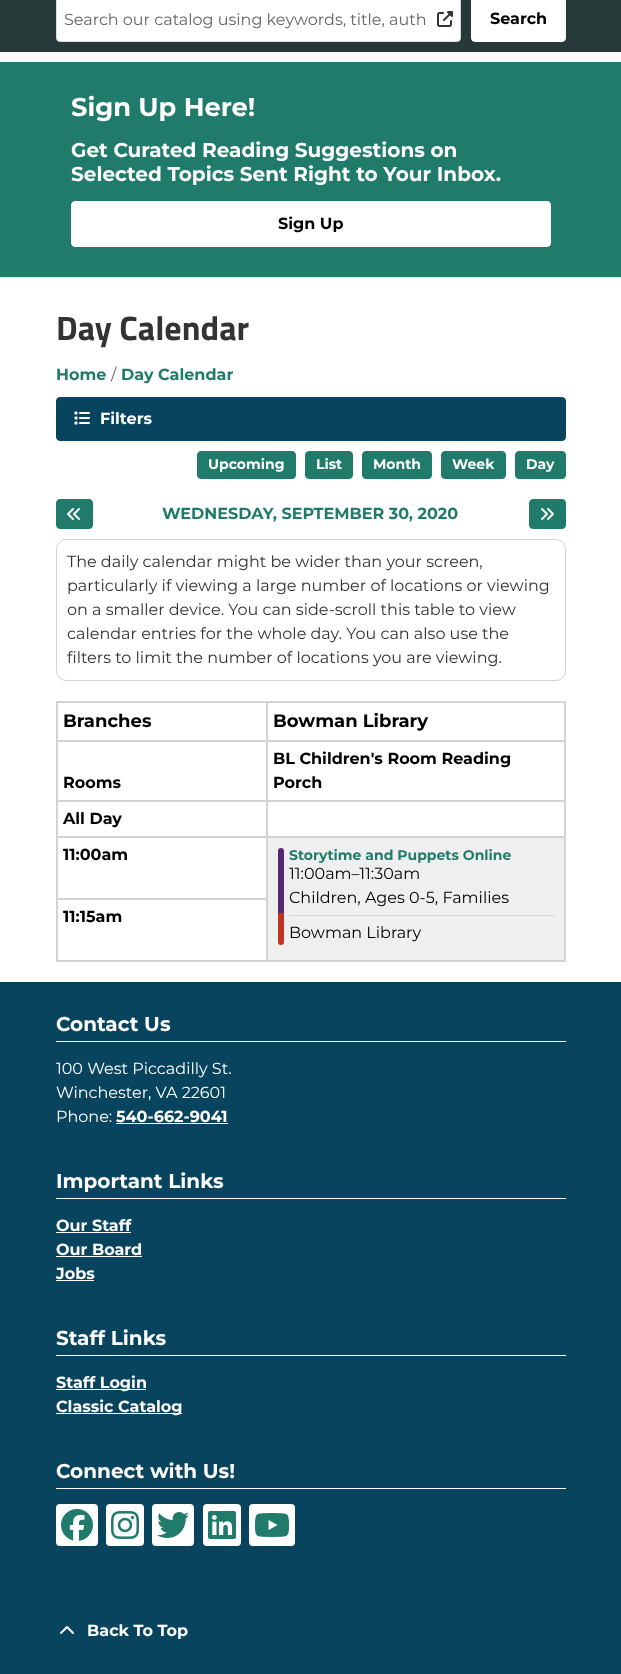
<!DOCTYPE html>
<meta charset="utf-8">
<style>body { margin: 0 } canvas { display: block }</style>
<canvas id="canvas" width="621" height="1674"></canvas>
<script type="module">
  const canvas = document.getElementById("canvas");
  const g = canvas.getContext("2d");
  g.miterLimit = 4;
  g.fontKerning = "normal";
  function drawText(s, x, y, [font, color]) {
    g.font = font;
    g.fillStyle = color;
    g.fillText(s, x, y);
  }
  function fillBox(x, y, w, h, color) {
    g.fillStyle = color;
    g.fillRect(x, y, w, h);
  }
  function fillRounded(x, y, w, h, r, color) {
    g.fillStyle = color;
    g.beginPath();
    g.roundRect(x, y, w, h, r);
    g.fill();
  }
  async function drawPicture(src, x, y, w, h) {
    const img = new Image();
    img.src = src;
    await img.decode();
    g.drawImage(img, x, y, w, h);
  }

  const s1 = ["16px Montserrat", "#666666"];
  const s2 = ["bold 16px Montserrat", "#000000"];
  const s3 = ["bold 25.75px Montserrat", "#FFFFFF"];
  const s4 = ["bold 20px Montserrat", "#FFFFFF"];
  const s5 = ["bold 34px Titillium Web", "#333333"];
  const s6 = ["bold 16px Montserrat", "#217B6B"];
  const s7 = ["bold 16px Montserrat", "#FFFFFF"];
  const s8 = ["bold 14px Montserrat", "#FFFFFF"];
  const s9 = ["16px Montserrat", "#333333"];
  const s10 = ["bold 18px Montserrat", "#000000"];
  const s11 = ["bold 14px Montserrat", "#217B6B"];
  const s12 = ["16px Montserrat", "#000000"];
  const s13 = ["16px Montserrat", "#FFFFFF"];

  fillBox(0, 0, 621, 1674, "#FFFFFF");
  fillBox(0, 0, 621, 52, "#273838");
  g.fillStyle = "#FFFFFF";
  g.beginPath();
  g.roundRect(56.5, -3.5, 404, 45, 3.5);
  g.fill();
  g.strokeStyle = "#DDDDDD";
  g.stroke();
  drawText("Search our catalog using keywords, title, auth", 64, 25, s1);
  await drawPicture("pic1.png", 437, 11, 16, 16);
  g.fillStyle = "#FFFFFF";
  g.beginPath();
  g.roundRect(471.5, -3.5, 94, 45, 3.5);
  g.fill();
  g.strokeStyle = "#FFFFFF";
  g.stroke();
  drawText("Search", 490, 24, s2);
  fillBox(0, 62, 621, 215, "#217B6B");
  drawText("Sign Up Here!", 71, 116, s3);
  drawText("Get Curated Reading Suggestions on", 71, 157, s4);
  drawText("Selected Topics Sent Right to Your Inbox.", 71, 181, s4);
  g.beginPath();
  g.roundRect(71.5, 201.5, 479, 45, 3.5);
  g.fill();
  g.stroke();
  drawText("Sign Up", 278, 229, s2);
  drawText("Day Calendar", 56, 340, s5);
  drawText("Home", 56, 380, s6);
  drawText("/", 111, 380, s1);
  drawText("Day Calendar", 121, 380, s6);
  g.fillStyle = "#08445E";
  g.beginPath();
  g.roundRect(56.5, 397.5, 509, 43, 3.5);
  g.fill();
  g.strokeStyle = "#08445E";
  g.stroke();
  await drawPicture("pic2.png", 74, 411, 16, 14);
  drawText("Filters", 100, 424, s7);
  g.fillStyle = "#217B6B";
  g.beginPath();
  g.roundRect(197.5, 451.5, 98, 27, 3.5);
  g.fill();
  g.strokeStyle = "#217B6B";
  g.stroke();
  drawText("Upcoming", 208, 469, s8);
  g.fillStyle = "#217B6B";
  g.beginPath();
  g.roundRect(305.5, 451.5, 47, 27, 3.5);
  g.fill();
  g.stroke();
  drawText("List", 316, 469, s8);
  g.fillStyle = "#217B6B";
  g.beginPath();
  g.roundRect(362.5, 451.5, 69, 27, 3.5);
  g.fill();
  g.stroke();
  drawText("Month", 373, 469, s8);
  g.fillStyle = "#217B6B";
  g.beginPath();
  g.roundRect(441.5, 451.5, 64, 27, 3.5);
  g.fill();
  g.stroke();
  drawText("Week", 452, 469, s8);
  g.fillStyle = "#217B6B";
  g.beginPath();
  g.roundRect(515.5, 451.5, 50, 27, 3.5);
  g.fill();
  g.stroke();
  drawText("Day", 526, 469, s8);
  g.fillStyle = "#217B6B";
  g.beginPath();
  g.roundRect(56.5, 499.5, 36, 29, 3.5);
  g.fill();
  g.stroke();
  await drawPicture("pic3.png", 67, 508, 13, 12);
  drawText("WEDNESDAY, SEPTEMBER 30, 2020", 162, 519, s6);
  g.beginPath();
  g.roundRect(529.5, 499.5, 36, 29, 3.5);
  g.fill();
  g.stroke();
  await drawPicture("pic4.png", 541, 508, 13, 12);
  g.beginPath();
  g.roundRect(56.5, 539.5, 509, 141, 9.5);
  g.strokeStyle = "#D2D3D5";
  g.stroke();
  drawText("The daily calendar might be wider than your screen,", 67, 567, s9);
  drawText("particularly if viewing a large number of locations or viewing", 67, 591, s9);
  drawText("on a smaller device. You can side-scroll this table to view", 67, 615, s9);
  drawText("calendar entries for the whole day. You can also use the", 67, 639, s9);
  drawText("filters to limit the number of locations you are viewing.", 67, 663, s9);
  fillBox(56, 701, 510, 2, "#D2D3D5");
  fillBox(56, 701, 2, 261, "#D2D3D5");
  fillBox(266, 703, 2, 259, "#D2D3D5");
  fillBox(58, 740, 210, 2, "#D2D3D5");
  drawText("Branches", 63, 727, s10);
  fillBox(564, 703, 2, 259, "#D2D3D5");
  fillBox(268, 740, 298, 2, "#D2D3D5");
  drawText("Bowman Library", 273, 727, s10);
  drawText("Rooms", 63, 788, s2);
  fillBox(58, 800, 508, 2, "#D2D3D5");
  drawText("BL Children's Room Reading", 273, 764, s2);
  drawText("Porch", 273, 788, s2);
  drawText("All Day", 63, 824, s2);
  fillBox(58, 836, 508, 2, "#D2D3D5");
  fillBox(58, 898, 210, 2, "#D2D3D5");
  drawText("11:00am", 63, 860, s2);
  fillBox(268, 838, 296, 122, "#EFEFEF");
  fillBox(58, 960, 508, 2, "#D2D3D5");
  g.fillStyle = "#55286F";
  g.beginPath();
  g.roundRect(278, 848, 6, 32, [3, 3, 0, 0]);
  g.fill();
  fillBox(278, 880, 6, 33, "#55286F");
  g.fillStyle = "#C03221";
  g.beginPath();
  g.roundRect(278, 913, 6, 32, [0, 0, 3, 3]);
  g.fill();
  drawText("Storytime and Puppets Online", 289, 860, s11);
  drawText("11:00am–11:30am", 289, 879, s12);
  drawText("Children, Ages 0-5, Families", 289, 903, s12);
  fillBox(289, 915, 265, 1, "#D2D3D5");
  drawText("Bowman Library", 289, 938, s12);
  drawText("11:15am", 63, 922, s2);
  fillBox(0, 982, 621, 692, "#08445E");
  fillBox(56, 1041, 510, 1, "#FFFFFF");
  drawText("Contact Us", 56, 1031, s4);
  drawText("100 West Piccadilly St.", 56, 1074, s13);
  drawText("Winchester, VA 22601", 56, 1098, s13);
  drawText("Phone:", 56, 1122, s13);
  drawText("540-662-9041", 116, 1122, s7);
  fillBox(116, 1123, 112, 1, "#FFFFFF");
  fillBox(56, 1198, 510, 1, "#FFFFFF");
  drawText("Important Links", 56, 1188, s4);
  drawText("Our Staff", 56, 1231, s7);
  fillBox(56, 1232, 75, 1, "#FFFFFF");
  drawText("Our Board", 56, 1255, s7);
  fillBox(56, 1256, 86, 1, "#FFFFFF");
  drawText("Jobs", 56, 1279, s7);
  fillBox(56, 1280, 38, 1, "#FFFFFF");
  fillBox(56, 1355, 510, 1, "#FFFFFF");
  drawText("Staff Links", 56, 1345, s4);
  fillBox(56, 1389, 90, 1, "#FFFFFF");
  drawText("Staff Login", 56, 1388, s7);
  fillBox(56, 1413, 126, 1, "#FFFFFF");
  drawText("Classic Catalog", 56, 1412, s7);
  fillBox(56, 1488, 510, 1, "#FFFFFF");
  drawText("Connect with Us!", 56, 1478, s4);
  fillRounded(56, 1504, 42, 42, 4, "#FFFFFF");
  await drawPicture("pic5.png", 61, 1509, 32, 32);
  fillRounded(106, 1504, 38, 42, 4, "#FFFFFF");
  await drawPicture("pic6.png", 111, 1511, 28, 28);
  fillRounded(152, 1504, 42, 42, 4, "#FFFFFF");
  await drawPicture("pic7.png", 157, 1512, 32, 26);
  fillRounded(203, 1504, 38, 42, 4, "#FFFFFF");
  await drawPicture("pic8.png", 208, 1511, 28, 28);
  fillRounded(249, 1504, 46, 42, 4, "#FFFFFF");
  await drawPicture("pic9.png", 254, 1513, 36, 24);
  await drawPicture("pic10.png", 60, 1626, 14, 8);
  drawText("Back To Top", 87, 1636, s7);
</script>
